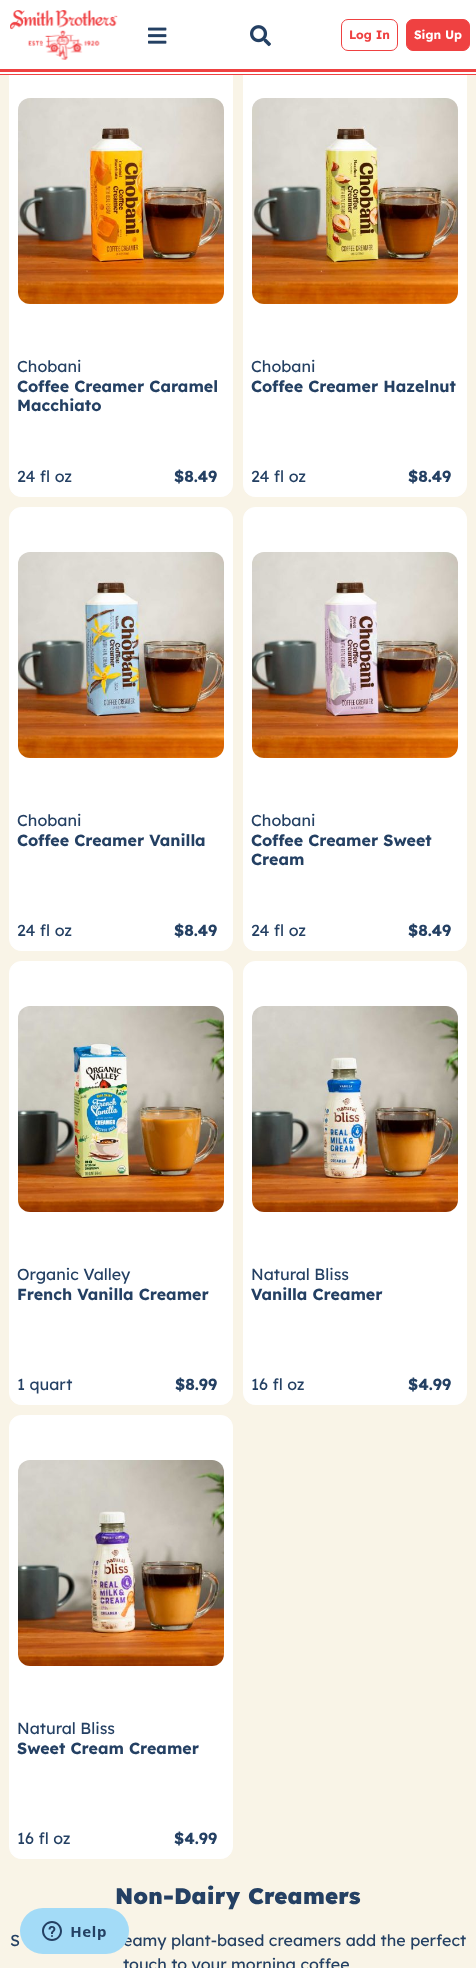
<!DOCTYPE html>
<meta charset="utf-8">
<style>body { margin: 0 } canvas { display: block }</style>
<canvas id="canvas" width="476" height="1968"></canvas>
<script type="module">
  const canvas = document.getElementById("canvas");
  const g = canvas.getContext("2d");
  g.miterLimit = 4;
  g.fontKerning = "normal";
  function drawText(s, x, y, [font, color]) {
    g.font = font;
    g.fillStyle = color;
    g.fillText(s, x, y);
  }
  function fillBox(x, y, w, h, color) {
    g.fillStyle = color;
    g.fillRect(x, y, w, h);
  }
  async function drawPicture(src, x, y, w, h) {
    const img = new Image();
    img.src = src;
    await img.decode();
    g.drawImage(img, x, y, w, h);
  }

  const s1 = ["bold 12px Lexend Deca", "#EF4141"];
  const s2 = ["bold 12px Lexend Deca", "#FFFFFF"];
  const s3 = ["16px Lexend Deca", "#244063"];
  const s4 = ["bold 16px Lexend Deca", "#244063"];
  const s5 = ["900 22.4px Lexend Deca", "#244063"];

  fillBox(0, 0, 476, 1968, "#F9F4E7");
  g.fillStyle = "#FFFFFF";
  g.beginPath();
  g.roundRect(9.5, 53.5, 223, 443, 11.5);
  g.fill();
  g.strokeStyle = "#FFFFFF";
  g.stroke();
  g.beginPath();
  g.roundRect(243.5, 53.5, 223, 443, 11.5);
  g.fill();
  g.stroke();
  fillBox(0, 0, 476, 74, "#FFFFFF");
  await drawPicture("pic1.png", 10, 10, 108, 50);
  await drawPicture("pic2.png", 148, 27, 19, 17);
  await drawPicture("pic3.png", 250, 25, 21, 22);
  g.beginPath();
  g.roundRect(341.5, 19.5, 56, 31, 6.5);
  g.strokeStyle = "#EF4141";
  g.stroke();
  drawText("Log In", 349, 39, s1);
  g.beginPath();
  g.roundRect(406.5, 19.5, 63, 31, 6.5);
  g.fill();
  g.stroke();
  drawText("Sign Up", 414, 39, s2);
  fillBox(0, 69, 476, 3, "#EF4141");
  fillBox(0, 74, 476, 1, "#EF4141");
  await drawPicture("pic4.png", 18, 98, 206, 206);
  drawText("Chobani", 17, 372, s3);
  drawText("Coffee Creamer Caramel", 17, 392, s4);
  drawText("Macchiato", 17, 411, s4);
  drawText("24 fl oz", 17, 482, s3);
  drawText("$8.49", 174, 482, s4);
  await drawPicture("pic5.png", 252, 98, 206, 206);
  drawText("Chobani", 251, 372, s3);
  drawText("Coffee Creamer Hazelnut", 251, 392, s4);
  drawText("24 fl oz", 251, 482, s3);
  drawText("$8.49", 408, 482, s4);
  g.fillStyle = "#FFFFFF";
  g.beginPath();
  g.roundRect(9.5, 507.5, 223, 443, 11.5);
  g.fill();
  g.strokeStyle = "#FFFFFF";
  g.stroke();
  await drawPicture("pic6.png", 18, 552, 206, 206);
  drawText("Chobani", 17, 826, s3);
  drawText("Coffee Creamer Vanilla", 17, 846, s4);
  drawText("24 fl oz", 17, 936, s3);
  drawText("$8.49", 174, 936, s4);
  g.fillStyle = "#FFFFFF";
  g.beginPath();
  g.roundRect(243.5, 507.5, 223, 443, 11.5);
  g.fill();
  g.stroke();
  await drawPicture("pic7.png", 252, 552, 206, 206);
  drawText("Chobani", 251, 826, s3);
  drawText("Coffee Creamer Sweet", 251, 846, s4);
  drawText("Cream", 251, 865, s4);
  drawText("24 fl oz", 251, 936, s3);
  drawText("$8.49", 408, 936, s4);
  g.fillStyle = "#FFFFFF";
  g.beginPath();
  g.roundRect(9.5, 961.5, 223, 443, 11.5);
  g.fill();
  g.stroke();
  await drawPicture("pic8.png", 18, 1006, 206, 206);
  drawText("Organic Valley", 17, 1280, s3);
  drawText("French Vanilla Creamer", 17, 1300, s4);
  drawText("1 quart", 17, 1390, s3);
  drawText("$8.99", 175, 1390, s4);
  g.fillStyle = "#FFFFFF";
  g.beginPath();
  g.roundRect(243.5, 961.5, 223, 443, 11.5);
  g.fill();
  g.stroke();
  await drawPicture("pic9.png", 252, 1006, 206, 206);
  drawText("Natural Bliss", 251, 1280, s3);
  drawText("Vanilla Creamer", 251, 1300, s4);
  drawText("16 fl oz", 251, 1390, s3);
  drawText("$4.99", 408, 1390, s4);
  g.fillStyle = "#FFFFFF";
  g.beginPath();
  g.roundRect(9.5, 1415.5, 223, 443, 11.5);
  g.fill();
  g.stroke();
  await drawPicture("pic10.png", 18, 1460, 206, 206);
  drawText("Natural Bliss", 17, 1734, s3);
  drawText("Sweet Cream Creamer", 17, 1754, s4);
  drawText("16 fl oz", 17, 1844, s3);
  drawText("$4.99", 174, 1844, s4);
  drawText("Non-Dairy Creamers", 115, 1904, s5);
  drawText("S", 10, 1946, s3);
  drawText("eamy plant-based creamers add the perfect", 123, 1946, s3);
  drawText("touch to your morning coffee", 123, 1970, s3);
  await drawPicture("pic11.png", 20, 1908, 109, 46);
</script>
